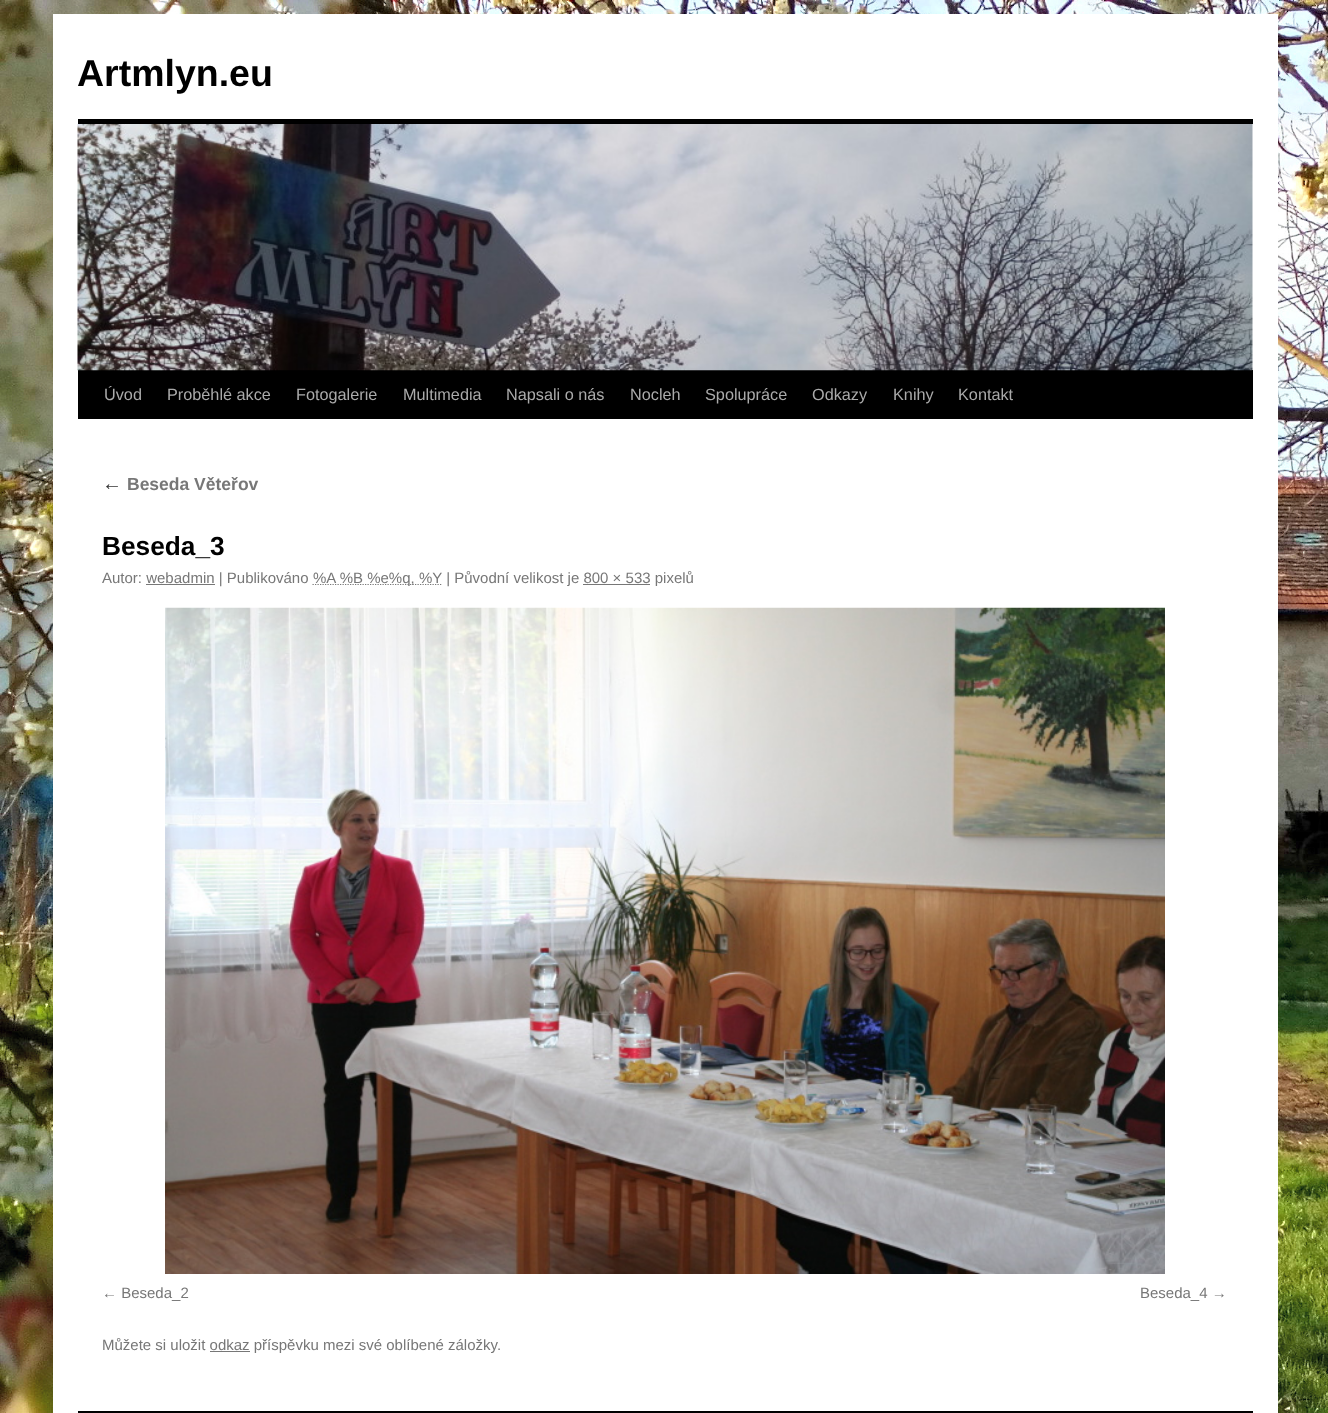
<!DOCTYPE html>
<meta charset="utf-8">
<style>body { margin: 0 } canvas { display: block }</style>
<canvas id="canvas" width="1328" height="1413"></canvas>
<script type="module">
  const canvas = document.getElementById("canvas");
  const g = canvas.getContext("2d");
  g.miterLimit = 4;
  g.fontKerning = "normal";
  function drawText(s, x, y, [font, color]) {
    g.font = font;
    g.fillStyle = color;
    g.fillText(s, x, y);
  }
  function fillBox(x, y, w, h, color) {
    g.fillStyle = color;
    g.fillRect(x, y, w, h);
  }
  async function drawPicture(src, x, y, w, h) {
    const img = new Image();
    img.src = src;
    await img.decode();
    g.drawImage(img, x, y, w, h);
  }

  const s1 = ["bold 37.5px Liberation Sans", "#000000"];
  const s2 = ["16.25px Liberation Sans", "#AAAAAA"];
  const s3 = ["italic 20px Liberation Serif", "#333333"];
  const s4 = ["bold 17.5px Liberation Sans", "#777777"];
  const s5 = ["bold 26.25px Liberation Sans", "#000000"];
  const s6 = ["15px Liberation Sans", "#777777"];

  fillBox(0, 0, 1328, 1413, "#FFFFFF");
  await drawPicture("pic1.png", 0, 0, 1328, 1413);
  fillBox(53, 14, 1225, 1399, "#FFFFFF");
  drawText("Artmlyn.eu", 77, 86, s1);
  fillBox(78, 119, 1175, 5, "#000000");
  fillBox(78, 370, 1175, 49, "#000000");
  await drawPicture("pic2.png", 77, 124, 1176, 247);
  drawText("Úvod", 104, 400, s2);
  drawText("Proběhlé akce", 167, 400, s2);
  drawText("Fotogalerie", 296, 400, s2);
  drawText("Multimedia", 403, 400, s2);
  drawText("Napsali o nás", 506, 400, s2);
  drawText("Nocleh", 630, 400, s2);
  drawText("Spolupráce", 705, 400, s2);
  drawText("Odkazy", 812, 400, s2);
  drawText("Knihy", 893, 400, s2);
  drawText("Kontakt", 958, 400, s2);
  drawText("←", 102, 490, s3);
  drawText("Beseda Věteřov", 127, 490, s4);
  drawText("Beseda_3", 102, 555, s5);
  drawText("Autor: webadmin | Publikováno", 102, 583, s6);
  g.beginPath();
  g.moveTo(312.5, 584.5);
  g.lineTo(441.5, 584.5);
  g.strokeStyle = "#777777";
  g.lineWidth = 1.2;
  g.setLineDash([1.25, 1.25]);
  g.stroke();
  drawText("%A %B %e%q, %Y | Původní velikost je 800 × 533 pixelů", 313, 583, s6);
  fillBox(146, 584, 69, 1, "#777777");
  fillBox(583, 584, 67, 1, "#777777");
  await drawPicture("pic3.png", 165, 607, 1000, 667);
  drawText("← Beseda_2", 102, 1298, s6);
  drawText("Beseda_4 →", 1140, 1298, s6);
  drawText("Můžete si uložit odkaz příspěvku mezi své oblíbené záložky.", 102, 1350, s6);
  fillBox(210, 1351, 40, 1, "#777777");
  fillBox(78, 1411, 1175, 2, "#000000");
</script>
